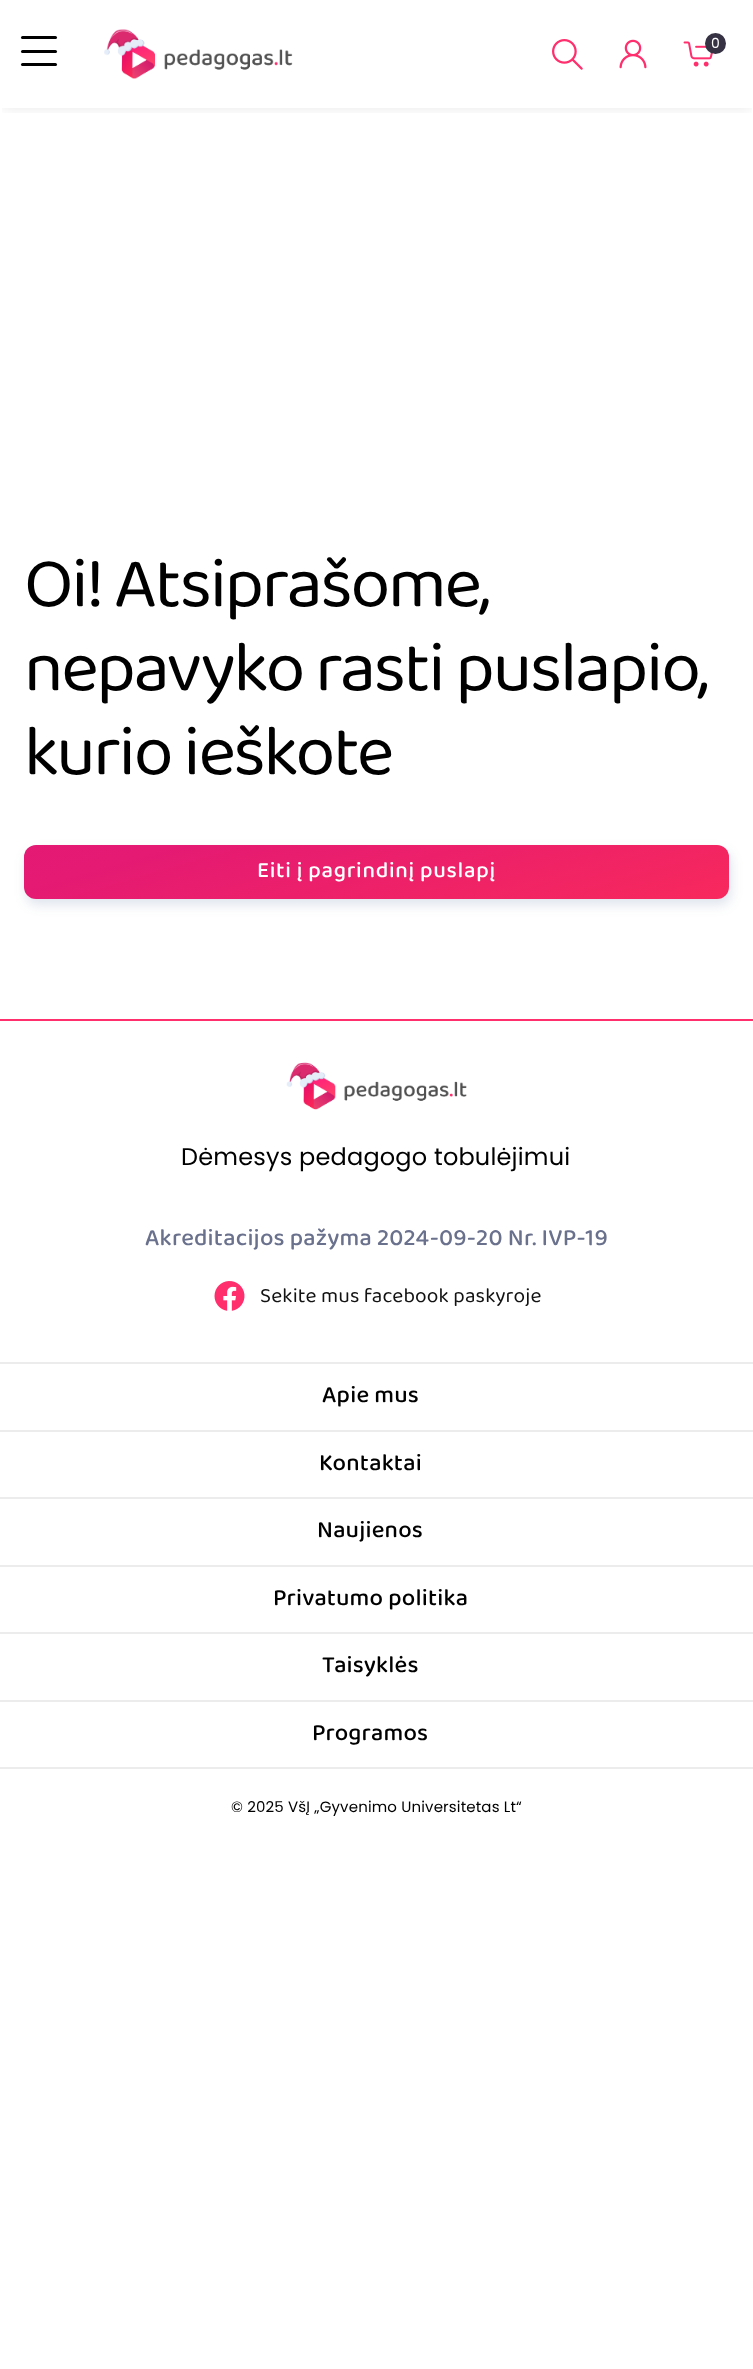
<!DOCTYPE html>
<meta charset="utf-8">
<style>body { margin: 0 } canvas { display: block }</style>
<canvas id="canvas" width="753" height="2369"></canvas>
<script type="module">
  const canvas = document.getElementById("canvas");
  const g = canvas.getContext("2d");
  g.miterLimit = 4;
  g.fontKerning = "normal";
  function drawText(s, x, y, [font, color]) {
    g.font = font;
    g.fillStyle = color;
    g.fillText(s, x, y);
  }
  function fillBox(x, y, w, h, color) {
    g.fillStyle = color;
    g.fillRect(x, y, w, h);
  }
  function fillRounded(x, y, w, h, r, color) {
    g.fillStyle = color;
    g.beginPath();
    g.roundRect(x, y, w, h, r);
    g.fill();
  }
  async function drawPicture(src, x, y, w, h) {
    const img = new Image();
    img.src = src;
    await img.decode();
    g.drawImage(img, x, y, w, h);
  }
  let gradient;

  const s1 = ["14px Poppins", "#FFFFFF"];
  const s2 = ["72px 'Baloo 2'", "#000000"];
  const s3 = ["500 22.5px 'Baloo 2'", "#FFFFFF"];
  const s4 = ["24px Poppins", "#000000"];
  const s5 = ["500 24px 'Baloo 2'", "#6A718D"];
  const s6 = ["21px 'Baloo 2'", "#121212"];
  const s7 = ["500 24px 'Baloo 2'", "#000000"];
  const s8 = ["15px Poppins", "#000000"];

  fillBox(0, 0, 753, 2369, "#FFFFFF");
  g.save();
  g.beginPath();
  g.rect(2, 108, 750, 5);
  g.clip();
  g.fillStyle = "rgba(0, 0, 0, 0.1)";
  g.filter = "blur(7.5px)";
  g.beginPath();
  g.rect(2, 2, 750, 105);
  g.fill();
  g.filter = "none";
  g.restore();
  fillRounded(21, 36, 36, 3, 1.5, "#000000");
  fillRounded(21, 50, 36, 3, 1.5, "#000000");
  fillRounded(21, 63, 36, 3, 1.5, "#000000");
  await drawPicture("pic1.png", 104, 29, 189, 50);
  await drawPicture("pic2.png", 552, 39, 31, 31);
  await drawPicture("pic3.png", 619, 39, 28, 30);
  await drawPicture("pic4.png", 683, 41, 30, 26);
  g.fillStyle = "#363243";
  g.beginPath();
  g.arc(715.5, 43.5, 10.5, 0, Math.PI * 2);
  g.fill();
  drawText("0", 711, 48, s1);
  g.letterSpacing = "-2.25px";
  drawText("Oi! Atsiprašome,", 24, 606, s2);
  drawText("nepavyko rasti puslapio,", 24, 690, s2);
  drawText("kurio ieškote", 24, 774, s2);
  g.fillStyle = "rgba(41, 74, 137, 0.15)";
  g.filter = "blur(6px)";
  g.beginPath();
  g.roundRect(26, 851, 705, 54, 12);
  g.fill();
  g.filter = "none";
  gradient = g.createLinearGradient(326, 699, 432, 1063);
  gradient.addColorStop(0, "#E21876");
  gradient.addColorStop(0.26, "#E41A73");
  gradient.addColorStop(1, "#FF2E54");
  g.fillStyle = gradient;
  g.beginPath();
  g.roundRect(24, 845, 705, 54, 12);
  g.fill();
  g.letterSpacing = "0.7px";
  drawText("Eiti į pagrindinį puslapį", 257, 877, s3);
  fillBox(0, 1019, 753, 2, "#FF2E6D");
  await drawPicture("pic5.png", 286, 1062, 181, 48);
  g.letterSpacing = "0.2px";
  drawText("Dėmesys pedagogo tobulėjimui", 181, 1165, s4);
  drawText("Akreditacijos pažyma 2024-09-20 Nr. IVP-19", 145, 1245, s5);
  await drawPicture("pic6.png", 214, 1281, 31, 30);
  g.letterSpacing = "0.15px";
  drawText("Sekite mus facebook paskyroje", 260, 1302, s6);
  fillBox(0, 1362, 753, 2, "#ECECEC");
  g.letterSpacing = "0.2px";
  drawText("Apie mus", 322, 1402, s7);
  fillBox(0, 1430, 753, 2, "#ECECEC");
  drawText("Kontaktai", 319, 1470, s7);
  fillBox(0, 1497, 753, 2, "#ECECEC");
  drawText("Naujienos", 317, 1537, s7);
  fillBox(0, 1565, 753, 2, "#ECECEC");
  drawText("Privatumo politika", 273, 1605, s7);
  fillBox(0, 1632, 753, 2, "#ECECEC");
  drawText("Taisyklės", 322, 1672, s7);
  fillBox(0, 1700, 753, 2, "#ECECEC");
  fillBox(0, 1767, 753, 2, "#ECECEC");
  drawText("Programos", 312, 1740, s7);
  g.letterSpacing = "0.15px";
  drawText("© 2025 VšĮ „Gyvenimo Universitetas Lt“", 231, 1812, s8);
</script>
